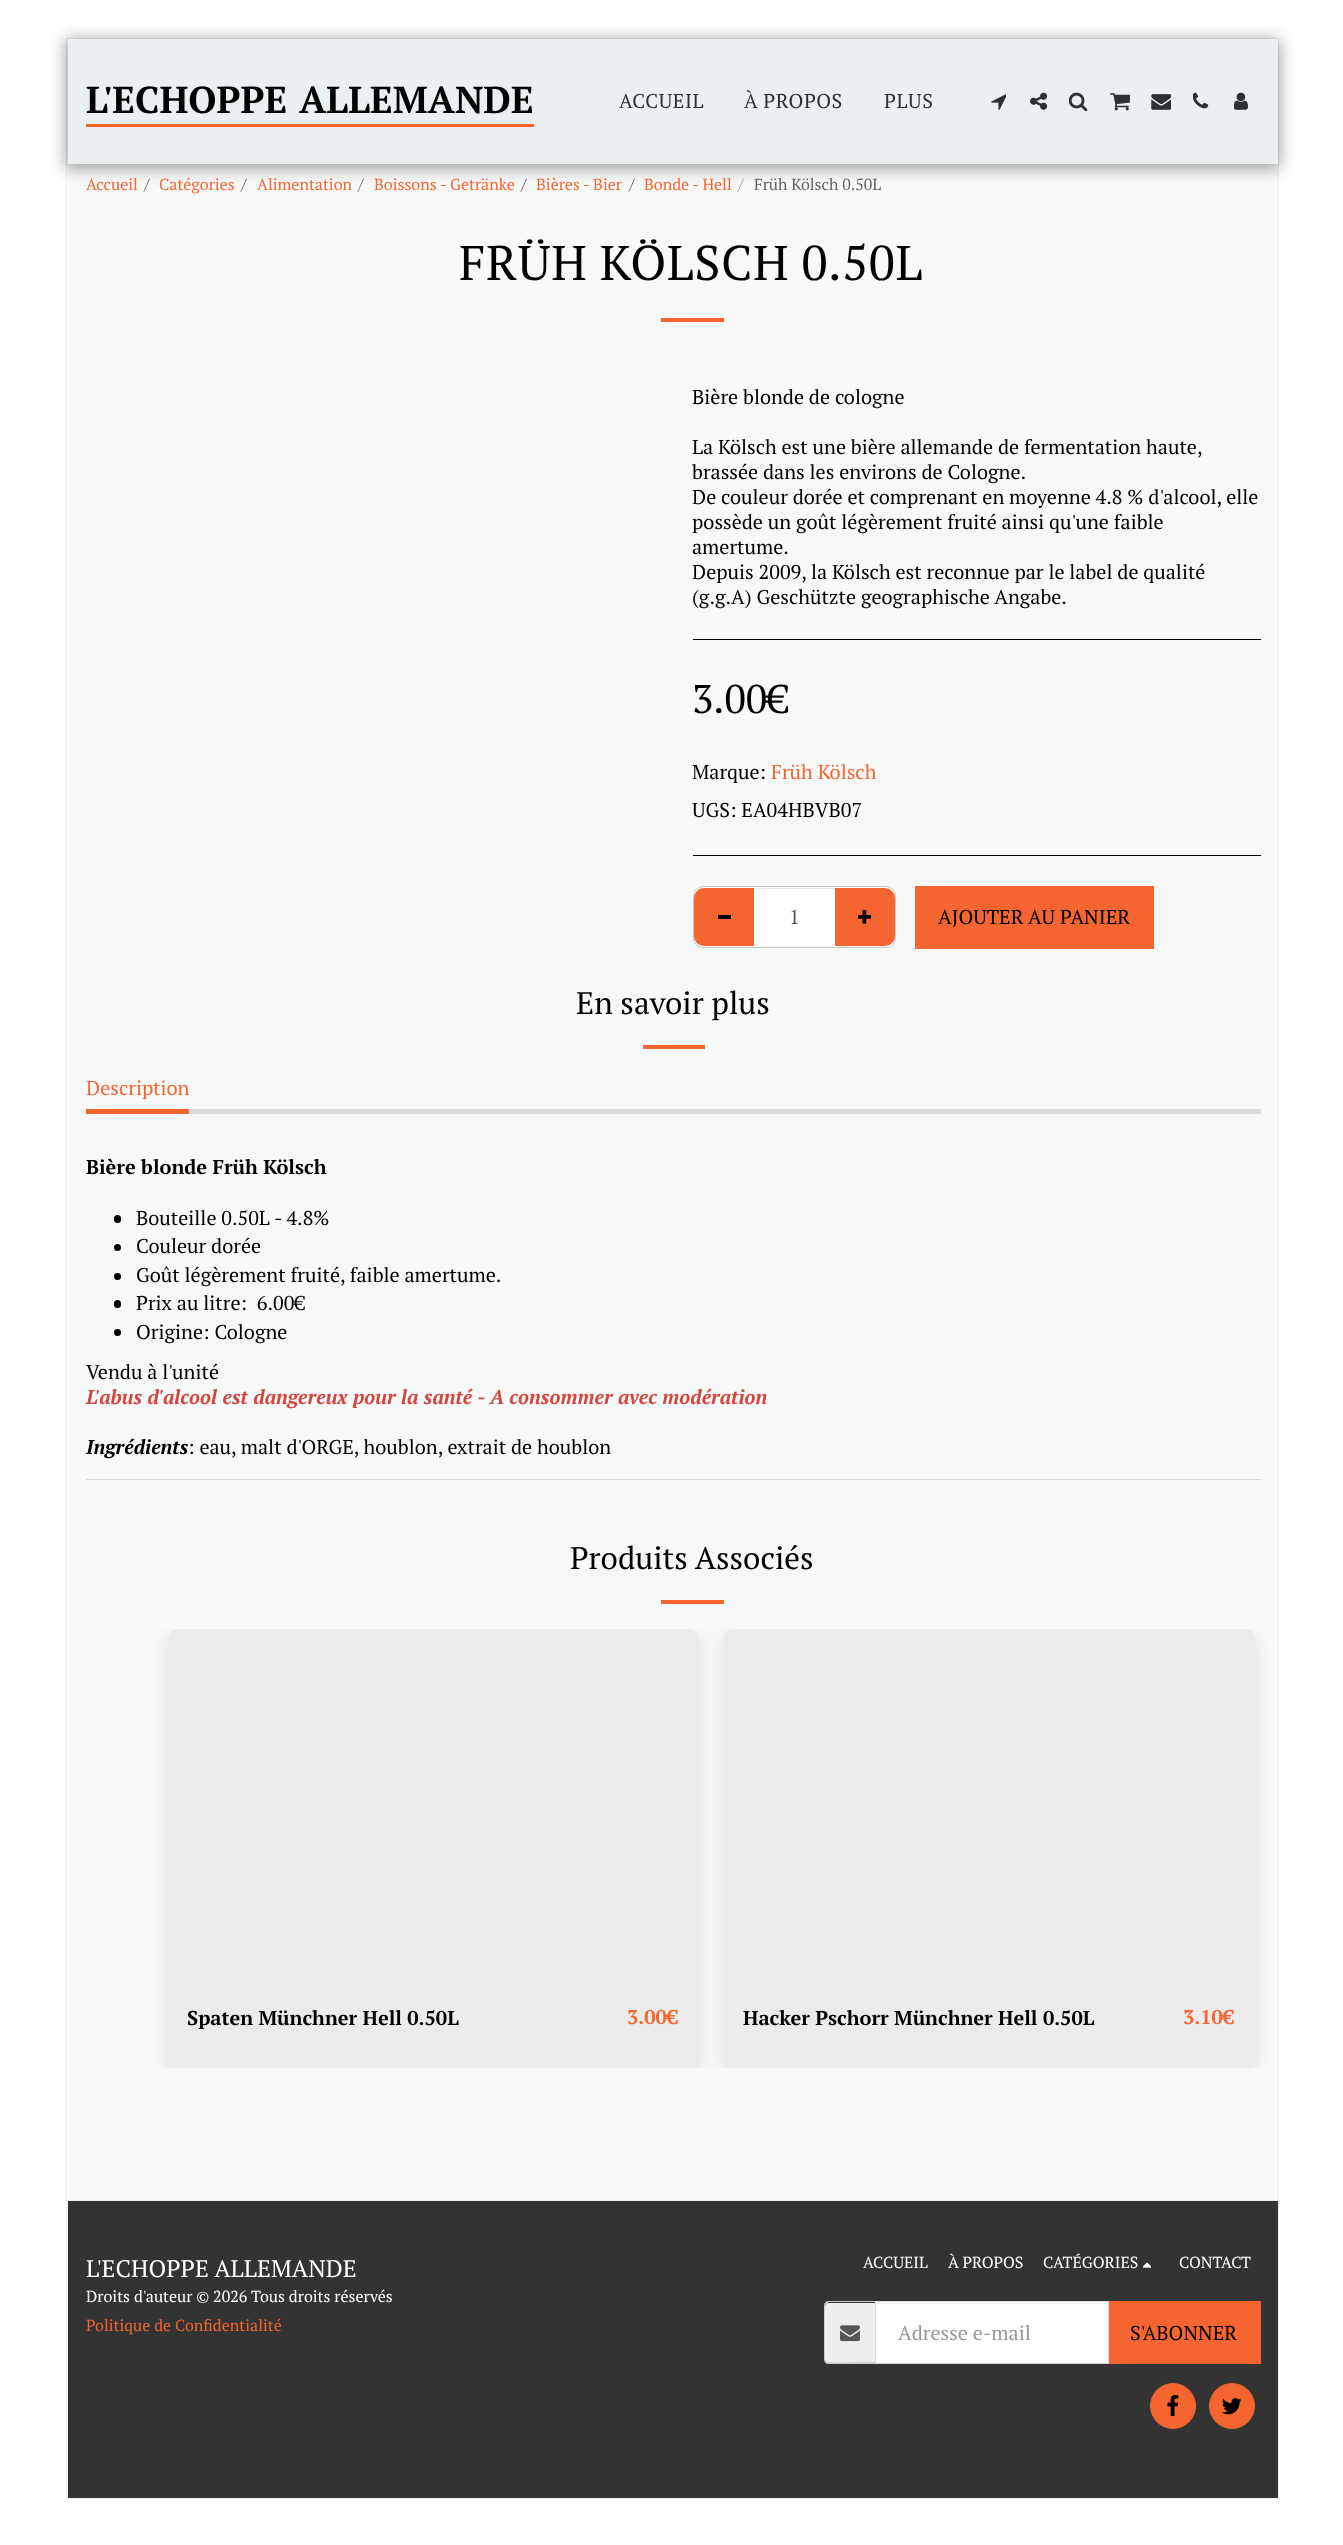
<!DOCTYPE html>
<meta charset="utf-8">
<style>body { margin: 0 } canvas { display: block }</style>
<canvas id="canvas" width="1343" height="2545"></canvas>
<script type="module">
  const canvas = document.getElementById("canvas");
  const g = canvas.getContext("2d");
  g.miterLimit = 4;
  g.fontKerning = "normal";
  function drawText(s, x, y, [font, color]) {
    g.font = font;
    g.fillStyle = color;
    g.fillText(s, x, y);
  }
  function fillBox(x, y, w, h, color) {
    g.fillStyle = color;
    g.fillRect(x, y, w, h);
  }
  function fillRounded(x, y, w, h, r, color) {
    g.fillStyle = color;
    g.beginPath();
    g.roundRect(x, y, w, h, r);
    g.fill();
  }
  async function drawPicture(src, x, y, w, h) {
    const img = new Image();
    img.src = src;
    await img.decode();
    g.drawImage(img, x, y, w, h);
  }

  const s1 = ["bold 37.5px PT Serif", "#000000"];
  const s2 = ["20px PT Serif", "#2F3030"];
  const s3 = ["16px PT Serif", "#F46530"];
  const s4 = ["16px PT Serif", "#636463"];
  const s5 = ["16px PT Serif", "#9E9F9F"];
  const s6 = ["48.75px PT Serif", "#000000"];
  const s7 = ["20px PT Serif", "#000000"];
  const s8 = ["40px PT Serif", "#000000"];
  const s9 = ["20px PT Serif", "#F46530"];
  const s10 = ["20px PT Serif", "#555555"];
  const s11 = ["31.25px PT Serif", "#000000"];
  const s12 = ["bold 20px PT Serif", "#000000"];
  const s13 = ["italic bold 20px PT Serif", "#D14841"];
  const s14 = ["italic bold 20px PT Serif", "#000000"];
  const s15 = ["bold 20px PT Serif", "#F46530"];
  const s16 = ["24px PT Serif", "#FFFFFF"];
  const s17 = ["16px PT Serif", "#FFFFFF"];
  const s18 = ["20px PT Serif", "#999999"];

  fillBox(0, 0, 1343, 2545, "#FFFFFF");
  g.strokeStyle = "#EAEFF2";
  g.strokeRect(66.5, 38.5, 1212, 2460);
  fillBox(68, 164, 1210, 2036, "#F7F9F8");
  g.fillStyle = "rgba(0, 0, 0, 0.35)";
  g.filter = "blur(7.5px)";
  g.beginPath();
  g.rect(65, 39, 1215, 130);
  g.fill();
  g.filter = "none";
  fillBox(68, 39, 1210, 125, "#EAEFF2");
  fillBox(86, 124, 448, 3, "#F46530");
  g.wordSpacing = "2px";
  drawText("L'ECHOPPE ALLEMANDE", 86, 113, s1);
  g.letterSpacing = "0.6px";
  g.wordSpacing = "0px";
  drawText("ACCUEIL", 619, 108, s2);
  drawText("À PROPOS", 744, 108, s2);
  drawText("PLUS", 884, 108, s2);
  await drawPicture("pic1.png", 991, 94, 15, 16);
  await drawPicture("pic2.png", 1030, 92, 18, 18);
  await drawPicture("pic3.png", 1069, 92, 19, 19);
  await drawPicture("pic4.png", 1110, 93, 20, 18);
  await drawPicture("pic5.png", 1151, 94, 20, 16);
  await drawPicture("pic6.png", 1193, 92, 16, 17);
  await drawPicture("pic7.png", 1234, 92, 14, 18);
  g.letterSpacing = "0px";
  drawText("Accueil", 86, 190, s3);
  drawText("/", 144, 190, s4);
  drawText("Catégories", 159, 190, s3);
  drawText("/", 241, 190, s4);
  drawText("Alimentation", 257, 190, s3);
  drawText("/", 358, 190, s4);
  drawText("Boissons - Getränke", 374, 190, s3);
  drawText("/", 521, 190, s4);
  drawText("Bières - Bier", 536, 190, s3);
  drawText("/", 629, 190, s4);
  drawText("Bonde - Hell", 644, 190, s3);
  drawText("/", 738, 190, s5);
  drawText("Früh Kölsch 0.50L", 754, 190, s4);
  g.letterSpacing = "0.6px";
  drawText("FRÜH KÖLSCH 0.50L", 459, 280, s6);
  fillBox(661, 318, 63, 4, "#F46530");
  g.letterSpacing = "0px";
  drawText("Bière blonde de cologne", 692, 404, s7);
  drawText("La Kölsch est une bière allemande de fermentation haute,", 692, 454, s7);
  drawText("brassée dans les environs de Cologne.", 692, 479, s7);
  drawText("De couleur dorée et comprenant en moyenne 4.8 % d'alcool, elle", 692, 504, s7);
  drawText("possède un goût légèrement fruité ainsi qu'une faible", 692, 529, s7);
  drawText("amertume.", 692, 554, s7);
  drawText("Depuis 2009, la Kölsch est reconnue par le label de qualité", 692, 579, s7);
  drawText("(g.g.A) Geschützte geographische Angabe.", 692, 604, s7);
  fillBox(693, 639, 568, 1, "#000000");
  drawText("3.00€", 692, 713, s8);
  drawText("Marque:", 692, 779, s7);
  drawText("Früh Kölsch", 771, 779, s9);
  drawText("UGS: EA04HBVB07", 692, 817, s7);
  fillBox(693, 855, 568, 1, "#000000");
  g.beginPath();
  g.roundRect(693.5, 886.5, 202, 61, 9.5);
  g.strokeStyle = "#C6C7C6";
  g.stroke();
  g.fillStyle = "#F46530";
  g.beginPath();
  g.roundRect(694, 888, 61, 58, [10, 0, 0, 10]);
  g.fill();
  fillBox(718, 915, 13, 4, "#000000");
  g.fillStyle = "#F46530";
  g.beginPath();
  g.roundRect(834, 888, 61, 58, [0, 10, 10, 0]);
  g.fill();
  fillBox(754, 889, 81, 57, "#FFFFFF");
  fillBox(754, 888, 81, 1, "#ECECEC");
  drawText("1", 789, 924, s10);
  await drawPicture("pic8.png", 858, 910, 13, 14);
  fillBox(915, 886, 239, 63, "#F46530");
  drawText("AJOUTER AU PANIER", 938, 924, s7);
  drawText("En savoir plus", 576, 1014, s11);
  fillBox(643, 1045, 62, 4, "#F46530");
  fillBox(189, 1109, 1072, 5, "#DBDBDB");
  fillBox(86, 1109, 103, 5, "#F46530");
  drawText("Description", 86, 1095, s9);
  fillBox(86, 1479, 1175, 1, "#DBDBDB");
  drawText("Bière blonde Früh Kölsch", 86, 1174, s12);
  fillRounded(114, 1215, 7, 8, 3.5, "#000000");
  drawText("Bouteille 0.50L - 4.8%", 136, 1225, s7);
  g.beginPath();
  g.arc(117.5, 1247.5, 3.5, 0, Math.PI * 2);
  g.fill();
  drawText("Couleur dorée", 136, 1253, s7);
  g.beginPath();
  g.arc(117.5, 1276.5, 3.5, 0, Math.PI * 2);
  g.fill();
  drawText("Goût légèrement fruité, faible amertume.", 136, 1282, s7);
  fillRounded(114, 1300, 7, 8, 3.5, "#000000");
  drawText("Prix au litre:  6.00€", 136, 1310, s7);
  g.beginPath();
  g.arc(117.5, 1332.5, 3.5, 0, Math.PI * 2);
  g.fill();
  drawText("Origine: Cologne", 136, 1339, s7);
  drawText("Vendu à l'unité", 86, 1379, s7);
  drawText("L'abus d'alcool est dangereux pour la santé - A consommer avec modération", 86, 1404, s13);
  drawText("Ingrédients", 86, 1454, s14);
  drawText(": eau, malt d'ORGE, houblon, extrait de houblon", 188, 1454, s7);
  drawText("Produits Associés", 570, 1569, s11);
  fillBox(661, 1600, 63, 4, "#F46530");
  g.save();
  g.beginPath();
  g.rect(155, 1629, 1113, 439);
  g.clip();
  g.fillStyle = "rgba(129, 129, 129, 0.2)";
  g.filter = "blur(9px)";
  g.beginPath();
  g.roundRect(168, 1635, 531, 439, 10);
  g.fill();
  g.filter = "none";
  g.restore();
  fillRounded(168, 1629, 531, 439, 10, "#EBEBEB");
  g.save();
  g.beginPath();
  g.rect(188, 2003, 271, 30);
  g.clip();
  drawText("Spaten Münchner Hell 0.50L", 187, 2025, s12);
  g.restore();
  drawText("3.00€", 627, 2024, s15);
  g.save();
  g.beginPath();
  g.rect(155, 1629, 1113, 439);
  g.clip();
  g.fillStyle = "rgba(129, 129, 129, 0.2)";
  g.filter = "blur(9px)";
  g.beginPath();
  g.roundRect(724, 1635, 531, 439, 10);
  g.fill();
  g.filter = "none";
  g.restore();
  fillRounded(724, 1629, 531, 439, 10, "#EBEBEB");
  drawText("Hacker Pschorr Münchner Hell 0.50L", 743, 2025, s12);
  drawText("3.10€", 1183, 2024, s15);
  fillBox(68, 2201, 1210, 297, "#333333");
  fillBox(68, 2200, 1210, 1, "#EAEFF2");
  drawText("L'ECHOPPE ALLEMANDE", 86, 2277, s16);
  drawText("Droits d'auteur © 2026 Tous droits réservés", 86, 2302, s17);
  drawText("Politique de Confidentialité", 86, 2331, s3);
  drawText("ACCUEIL", 863, 2268, s17);
  drawText("À PROPOS", 948, 2268, s17);
  drawText("CATÉGORIES", 1043, 2268, s17);
  await drawPicture("pic9.png", 1143, 2262, 8, 6);
  drawText("CONTACT", 1179, 2268, s17);
  g.fillStyle = "#EEEEEE";
  g.beginPath();
  g.roundRect(825, 2303, 50, 60, [4, 0, 0, 4]);
  g.fill();
  g.fillStyle = "#CCCCCC";
  g.beginPath();
  g.moveTo(829, 2301);
  g.lineTo(875, 2301);
  g.lineTo(875, 2364);
  g.lineTo(829, 2364);
  g.bezierCurveTo(826, 2364, 824, 2362, 824, 2359);
  g.lineTo(824, 2306);
  g.bezierCurveTo(824, 2303, 826, 2301, 829, 2301);
  g.closePath();
  g.moveTo(829, 2302);
  g.lineTo(875, 2302);
  g.lineTo(875, 2362);
  g.bezierCurveTo(869, 2362, 829, 2363, 827, 2362);
  g.lineTo(825, 2360);
  g.lineTo(825, 2305);
  g.lineTo(826, 2304);
  g.closePath();
  g.fill("evenodd");
  await drawPicture("pic10.png", 840, 2325, 20, 17);
  fillBox(876, 2302, 232, 61, "#FFFFFF");
  fillBox(876, 2303, 232, 1, "#ECECEC");
  g.strokeStyle = "#D4D7E5";
  g.strokeRect(875.5, 2301.5, 233, 62);
  drawText("Adresse e-mail", 898, 2340, s18);
  fillBox(1109, 2301, 152, 63, "#F46530");
  drawText("S'ABONNER", 1130, 2340, s7);
  g.fillStyle = "#F46530";
  g.beginPath();
  g.arc(1173, 2406, 22.5, 0, Math.PI * 2);
  g.fill();
  g.strokeStyle = "#F46530";
  g.stroke();
  await drawPicture("pic11.png", 1167, 2395, 12, 21);
  g.beginPath();
  g.arc(1232, 2406, 22.5, 0, Math.PI * 2);
  g.fill();
  g.stroke();
  await drawPicture("pic12.png", 1222, 2398, 19, 17);
</script>
